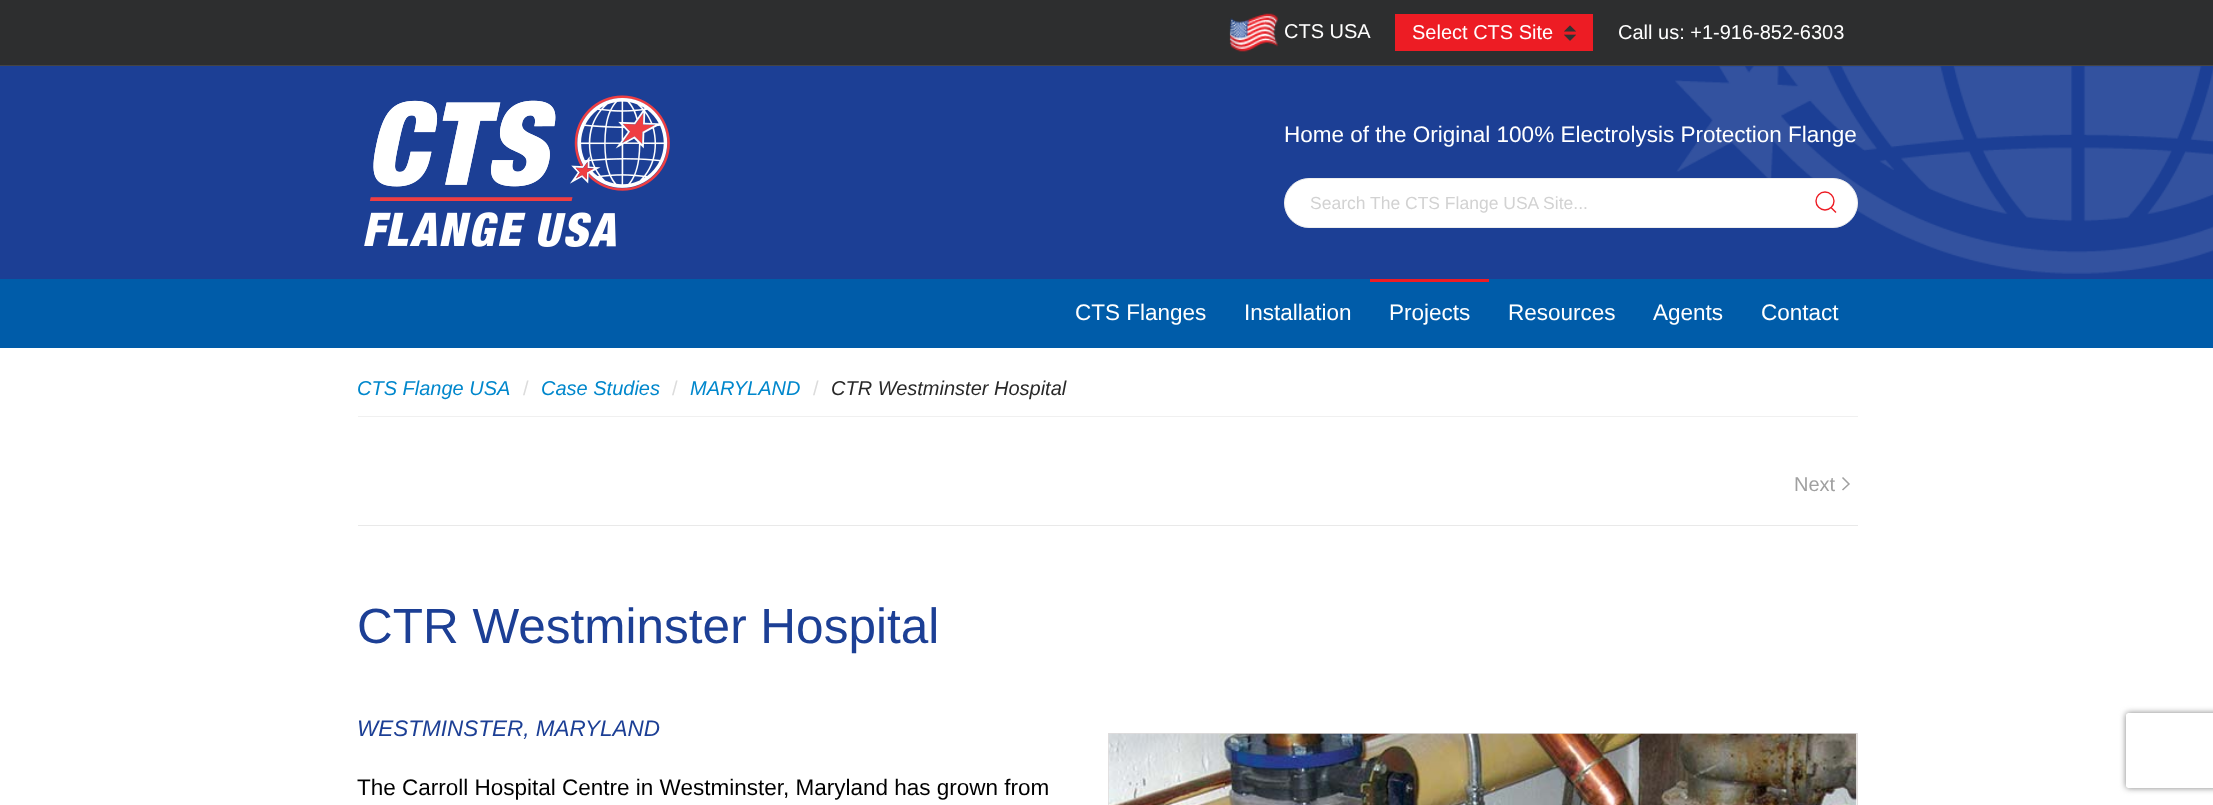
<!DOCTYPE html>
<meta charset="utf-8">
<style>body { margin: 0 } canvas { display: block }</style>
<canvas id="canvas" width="2213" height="805"></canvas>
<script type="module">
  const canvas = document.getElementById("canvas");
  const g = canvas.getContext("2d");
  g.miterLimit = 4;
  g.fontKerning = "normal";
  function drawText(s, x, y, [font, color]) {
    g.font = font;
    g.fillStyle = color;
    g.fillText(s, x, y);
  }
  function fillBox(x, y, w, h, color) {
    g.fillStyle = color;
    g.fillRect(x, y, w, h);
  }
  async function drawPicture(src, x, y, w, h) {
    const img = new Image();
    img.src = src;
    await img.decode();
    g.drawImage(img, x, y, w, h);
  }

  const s1 = ["20px Liberation Sans", "#FFFFFF"];
  const s2 = ["22.5px Liberation Sans", "#FFFFFF"];
  const s3 = ["17.5px Liberation Sans", "#D2D2D2"];
  const s4 = ["italic 20px Liberation Sans", "#0087CC"];
  const s5 = ["20px Liberation Sans", "#DCDCDC"];
  const s6 = ["italic 20px Liberation Sans", "#292929"];
  const s7 = ["20px Liberation Sans", "#A0A0A0"];
  const s8 = ["49.5px Liberation Sans", "#1C3F95"];
  const s9 = ["italic 22.5px Liberation Sans", "#1C3F95"];
  const s10 = ["22.5px Liberation Sans", "#000000"];

  fillBox(0, 0, 2213, 805, "#FFFFFF");
  fillBox(0, 0, 2213, 65, "#2D2E2F");
  fillBox(0, 65, 2213, 1, "#444444");
  await drawPicture("pic1.png", 1229, 13, 50, 39);
  drawText("CTS USA", 1284, 38, s1);
  fillBox(1395, 14, 198, 37, "#ED1C24");
  await drawPicture("pic2.png", 1564, 25, 12, 16);
  drawText("Select CTS Site", 1412, 39, s1);
  drawText("Call us: +1-916-852-6303", 1618, 39, s1);
  fillBox(0, 66, 2213, 213, "#1C3F95");
  await drawPicture("pic3.png", 1675, 66, 538, 208);
  await drawPicture("pic4.png", 364, 95, 306, 152);
  drawText("Home of the Original 100% Electrolysis Protection Flange", 1284, 142, s2);
  g.beginPath();
  g.roundRect(1284.5, 178.5, 573, 49, 24.5);
  g.fill();
  g.strokeStyle = "#EEEEEE";
  g.stroke();
  drawText("Search The CTS Flange USA Site...", 1310, 209, s3);
  g.beginPath();
  g.arc(1825, 201, 9, 0, Math.PI * 2);
  g.strokeStyle = "#ED1C24";
  g.lineWidth = 1.4;
  g.stroke();
  g.beginPath();
  g.moveTo(1831, 207.5);
  g.lineTo(1836, 212.5);
  g.closePath();
  g.stroke();
  fillBox(0, 279, 2213, 69, "#005CA9");
  drawText("CTS Flanges", 1075, 320, s2);
  drawText("Installation", 1244, 320, s2);
  fillBox(1370, 279, 119, 3, "#ED1C24");
  drawText("Projects", 1389, 320, s2);
  drawText("Resources", 1508, 320, s2);
  drawText("Agents", 1653, 320, s2);
  drawText("Contact", 1761, 320, s2);
  fillBox(358, 416, 1500, 1, "#F0F0F0");
  drawText("CTS Flange USA", 357, 395, s4);
  drawText("/", 523, 395, s5);
  drawText("Case Studies", 541, 395, s4);
  drawText("/", 672, 395, s5);
  drawText("MARYLAND", 690, 395, s4);
  drawText("/", 813, 395, s5);
  drawText("CTR Westminster Hospital", 831, 395, s6);
  drawText("Next", 1794, 491, s7);
  g.beginPath();
  g.moveTo(1842.5, 477.5);
  g.lineTo(1849, 484);
  g.lineTo(1842.5, 490);
  g.strokeStyle = "#A0A0A0";
  g.lineWidth = 1.5;
  g.stroke();
  fillBox(358, 525, 1500, 1, "#E9E9E9");
  drawText("CTR Westminster Hospital", 357, 643, s8);
  drawText("WESTMINSTER, MARYLAND", 357, 736, s9);
  drawText("The Carroll Hospital Centre in Westminster, Maryland has grown from", 357, 795, s10);
  g.strokeStyle = "#E1DDDD";
  g.lineWidth = 1;
  g.strokeRect(1108.5, 733.5, 749, 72);
  await drawPicture("pic5.png", 1108, 733, 749, 72);
  g.save();
  g.beginPath();
  g.moveTo(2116, 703);
  g.lineTo(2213, 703);
  g.lineTo(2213, 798);
  g.lineTo(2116, 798);
  g.closePath();
  g.moveTo(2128.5, 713);
  g.lineTo(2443.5, 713);
  g.bezierCurveTo(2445, 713, 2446, 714, 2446, 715.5);
  g.lineTo(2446, 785.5);
  g.bezierCurveTo(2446, 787, 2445, 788, 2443.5, 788);
  g.lineTo(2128.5, 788);
  g.bezierCurveTo(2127, 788, 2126, 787, 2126, 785.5);
  g.lineTo(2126, 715.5);
  g.bezierCurveTo(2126, 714, 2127, 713, 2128.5, 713);
  g.closePath();
  g.clip("evenodd");
  g.fillStyle = "#808080";
  g.filter = "blur(3px)";
  g.beginPath();
  g.roundRect(2126, 713, 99, 75, 2.5);
  g.fill();
  g.filter = "none";
  g.restore();
</script>
